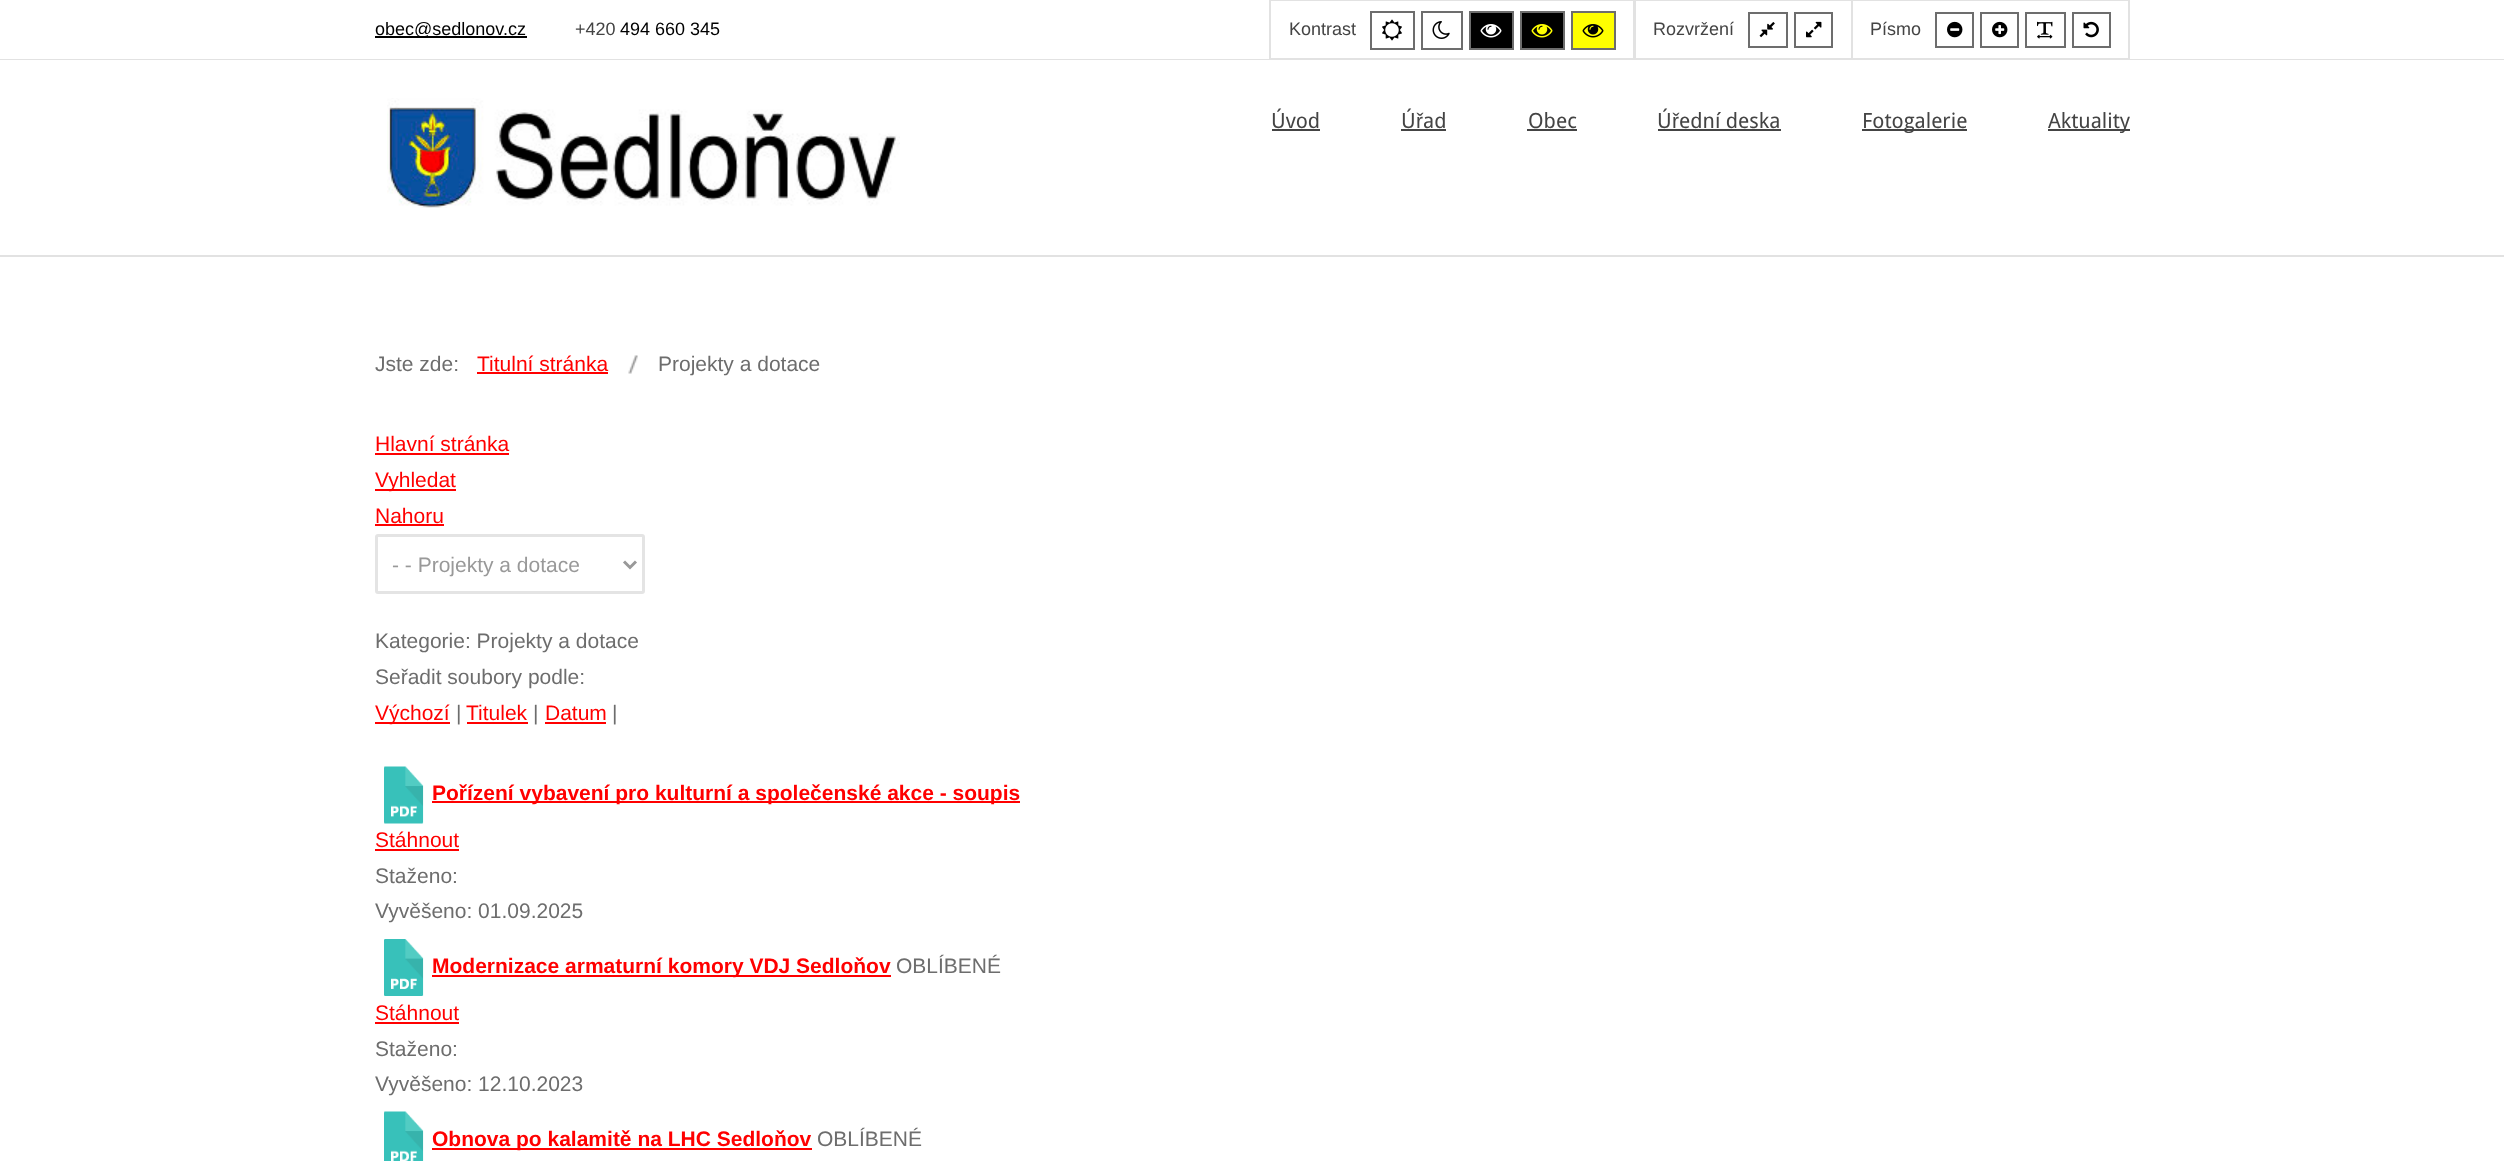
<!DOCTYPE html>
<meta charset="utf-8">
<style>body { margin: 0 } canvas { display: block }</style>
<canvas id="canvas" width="2504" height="1161"></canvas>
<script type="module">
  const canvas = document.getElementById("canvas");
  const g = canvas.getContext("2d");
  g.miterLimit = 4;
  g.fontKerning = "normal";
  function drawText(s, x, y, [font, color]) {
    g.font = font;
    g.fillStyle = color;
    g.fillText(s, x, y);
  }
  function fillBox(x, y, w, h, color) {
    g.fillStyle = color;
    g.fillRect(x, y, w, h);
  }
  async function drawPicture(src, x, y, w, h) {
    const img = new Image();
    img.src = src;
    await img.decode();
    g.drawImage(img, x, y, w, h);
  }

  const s1 = ["18px Liberation Sans", "#000000"];
  const s2 = ["18px Liberation Sans", "#444444"];
  const s3 = ["21px Droid Sans", "#444444"];
  const s4 = ["21px Liberation Sans", "#444444"];
  const s5 = ["21px Liberation Sans", "#6D6D6D"];
  const s6 = ["21px Liberation Sans", "#FF0000"];
  const s7 = ["21px Liberation Sans", "#999999"];
  const s8 = ["bold 21px Liberation Sans", "#FF0000"];

  fillBox(0, 0, 2504, 1161, "#FFFFFF");
  fillBox(0, 255, 2504, 2, "#E2E2E2");
  fillBox(0, 59, 2504, 1, "#E2E2E2");
  fillBox(375, 36, 152, 2, "#000000");
  drawText("obec@sedlonov.cz", 375, 35, s1);
  drawText("+420", 575, 35, s2);
  drawText("494 660 345", 620, 35, s1);
  g.strokeStyle = "#E2E2E2";
  g.lineWidth = 2;
  g.strokeRect(1270, 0, 364, 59);
  drawText("Kontrast", 1289, 35, s2);
  g.strokeStyle = "#6D6D6D";
  g.strokeRect(1371, 12, 43, 37);
  await drawPicture("pic1.png", 1382, 19, 20, 22);
  g.strokeRect(1422, 12, 40, 37);
  await drawPicture("pic2.png", 1432, 21, 18, 18);
  g.fillStyle = "#000000";
  g.beginPath();
  g.rect(1470, 12, 43, 37);
  g.fill();
  g.stroke();
  await drawPicture("pic3.png", 1480, 24, 22, 14);
  g.beginPath();
  g.rect(1521, 12, 43, 37);
  g.fill();
  g.stroke();
  await drawPicture("pic4.png", 1531, 24, 22, 14);
  g.fillStyle = "#FFFF00";
  g.beginPath();
  g.rect(1572, 12, 43, 37);
  g.fill();
  g.stroke();
  await drawPicture("pic5.png", 1582, 24, 22, 14);
  g.strokeStyle = "#E2E2E2";
  g.strokeRect(1635, 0, 217, 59);
  drawText("Rozvržení", 1653, 35, s2);
  g.strokeStyle = "#6D6D6D";
  g.strokeRect(1749, 13, 38, 34);
  await drawPicture("pic6.png", 1759, 22, 16, 16);
  g.strokeRect(1795, 13, 37, 34);
  await drawPicture("pic7.png", 1806, 21, 16, 17);
  g.strokeStyle = "#E2E2E2";
  g.strokeRect(1852, 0, 277, 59);
  drawText("Písmo", 1870, 35, s2);
  g.strokeStyle = "#6D6D6D";
  g.strokeRect(1936, 13, 37, 34);
  await drawPicture("pic8.png", 1947, 21, 16, 17);
  g.strokeRect(1981, 13, 37, 34);
  await drawPicture("pic9.png", 1992, 21, 16, 17);
  g.strokeRect(2026, 13, 39, 34);
  await drawPicture("pic10.png", 2037, 21, 16, 18);
  g.strokeRect(2073, 13, 37, 34);
  await drawPicture("pic11.png", 2083, 21, 16, 17);
  await drawPicture("pic12.png", 387, 98, 513, 110);
  drawText("Úvod", 1271, 128, s3);
  fillBox(1272, 129, 48, 2, "#444444");
  drawText("Ú", 1401, 128, s3);
  drawText("ř", 1416, 128, s4);
  drawText("ad", 1423, 128, s3);
  fillBox(1401, 129, 45, 2, "#444444");
  drawText("Obec", 1528, 128, s3);
  fillBox(1527, 129, 50, 2, "#444444");
  drawText("Ú", 1657, 128, s3);
  drawText("ř", 1672, 128, s4);
  fillBox(1658, 129, 123, 2, "#444444");
  drawText("ední deska", 1679, 128, s3);
  fillBox(1862, 129, 105, 2, "#444444");
  drawText("Fotogalerie", 1862, 128, s3);
  fillBox(2048, 129, 82, 2, "#444444");
  drawText("Aktuality", 2048, 128, s3);
  drawText("Jste zde:", 375, 371, s5);
  drawText("Titulní stránka", 477, 371, s6);
  fillBox(477, 372, 131, 2, "#FF0000");
  await drawPicture("pic13.png", 628, 355, 10, 19);
  drawText("Projekty a dotace", 658, 371, s5);
  drawText("Hlavní stránka", 375, 451, s6);
  fillBox(375, 453, 134, 2, "#FF0000");
  fillBox(375, 489, 81, 2, "#FF0000");
  drawText("Vyhledat", 375, 487, s6);
  drawText("Nahoru", 375, 523, s6);
  fillBox(375, 524, 69, 2, "#FF0000");
  g.beginPath();
  g.roundRect(376.5, 535.5, 267, 57, 1.5);
  g.strokeStyle = "#E4E4E4";
  g.lineWidth = 3;
  g.stroke();
  g.beginPath();
  g.moveTo(624, 561.5);
  g.lineTo(630, 567.5);
  g.lineTo(636, 561.5);
  g.strokeStyle = "#999999";
  g.stroke();
  drawText("- - Projekty a dotace", 392, 572, s7);
  drawText("Kategorie: Projekty a dotace", 375, 648, s5);
  drawText("Seřadit soubory podle:", 375, 684, s5);
  fillBox(375, 722, 75, 2, "#FF0000");
  drawText("Výchozí", 375, 720, s6);
  drawText("|", 456, 720, s5);
  drawText("Titulek", 466, 720, s6);
  fillBox(467, 722, 61, 2, "#FF0000");
  drawText("|", 533, 720, s5);
  drawText("Datum", 545, 720, s6);
  fillBox(545, 722, 61, 2, "#FF0000");
  drawText("|", 612, 720, s5);
  await drawPicture("pic14.png", 384, 766, 40, 58);
  fillBox(432, 801, 588, 2, "#FF0000");
  drawText("Pořízení vybavení pro kulturní a společenské akce - soupis", 432, 800, s8);
  drawText("Stáhnout", 375, 847, s6);
  fillBox(375, 849, 84, 2, "#FF0000");
  drawText("Staženo:", 375, 883, s5);
  drawText("Vyvěšeno: 01.09.2025", 375, 918, s5);
  await drawPicture("pic15.png", 384, 939, 40, 57);
  fillBox(432, 975, 459, 2, "#FF0000");
  drawText("Modernizace armaturní komory VDJ Sedloňov", 432, 973, s8);
  drawText("OBLÍBENÉ", 896, 973, s5);
  drawText("Stáhnout", 375, 1020, s6);
  fillBox(375, 1022, 84, 2, "#FF0000");
  drawText("Staženo:", 375, 1056, s5);
  drawText("Vyvěšeno: 12.10.2023", 375, 1091, s5);
  await drawPicture("pic16.png", 384, 1111, 40, 50);
  fillBox(432, 1148, 380, 2, "#FF0000");
  drawText("Obnova po kalamitě na LHC Sedloňov", 432, 1146, s8);
  drawText("OBLÍBENÉ", 817, 1146, s5);
</script>
